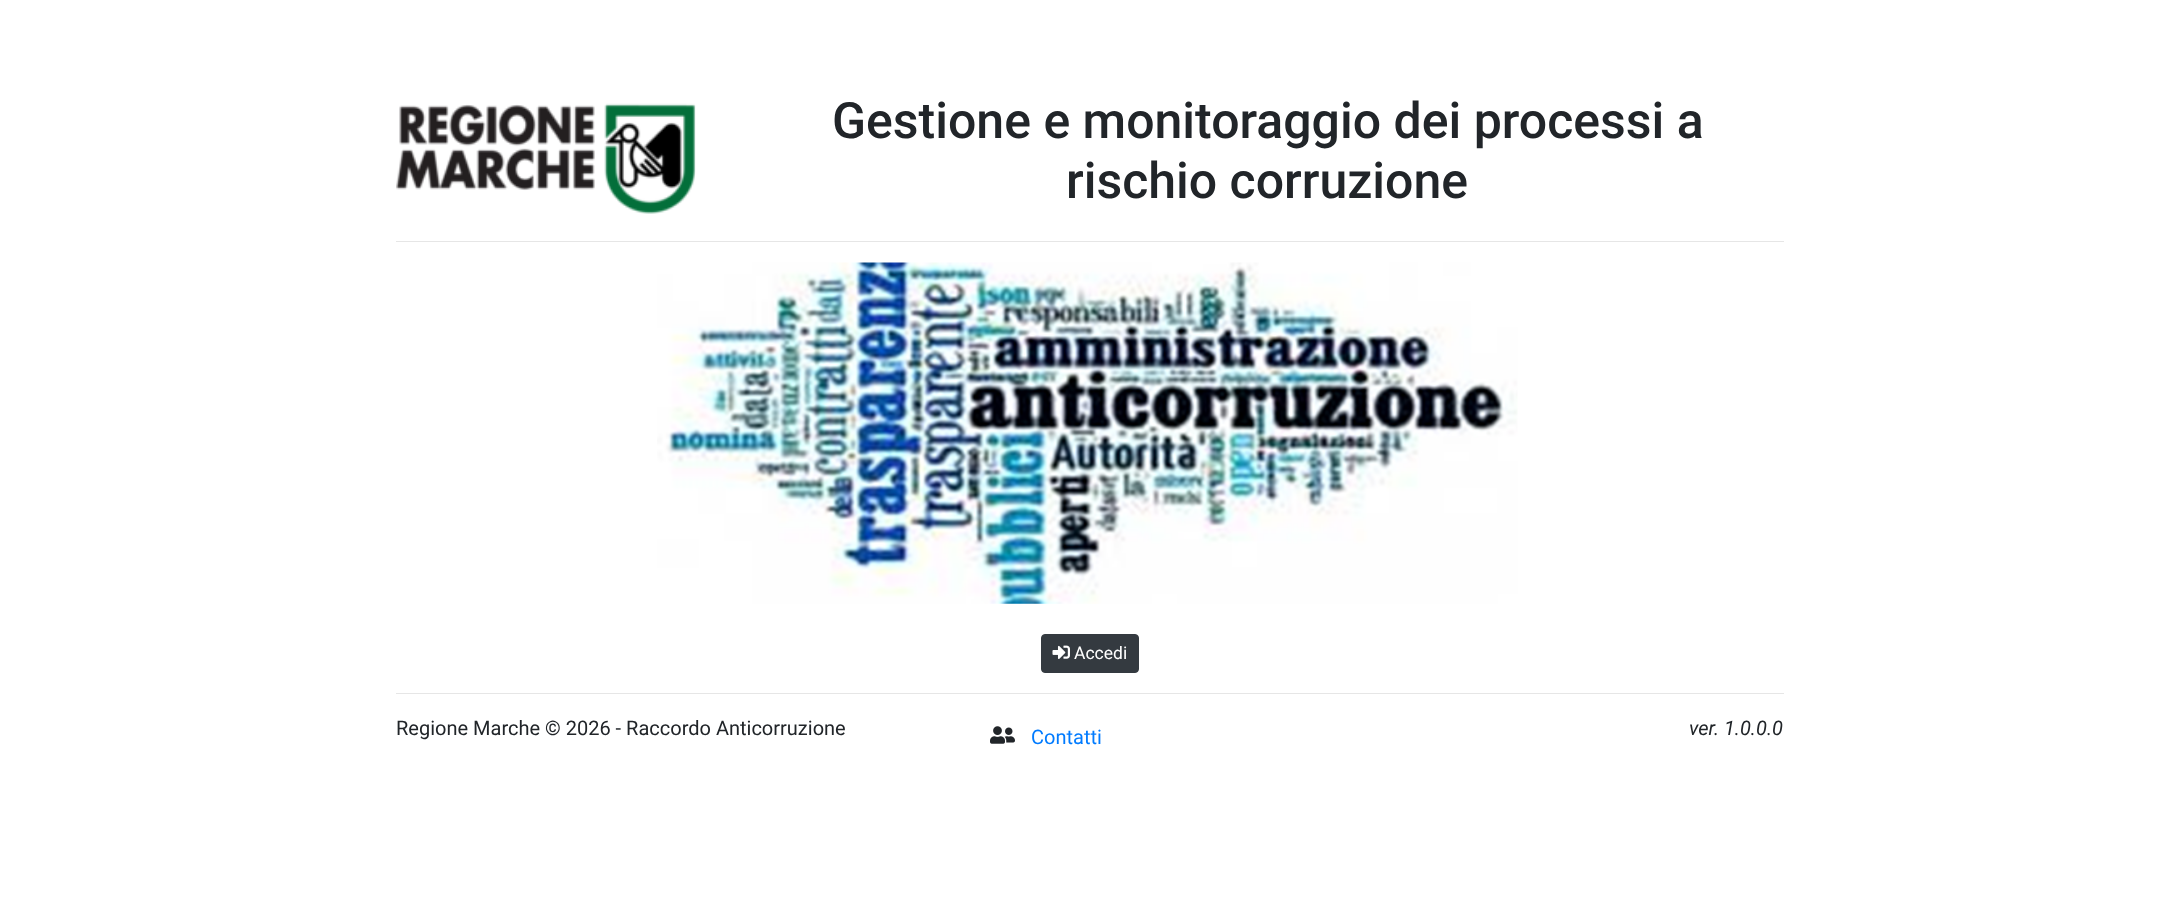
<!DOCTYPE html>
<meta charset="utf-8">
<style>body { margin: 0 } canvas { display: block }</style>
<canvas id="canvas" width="2178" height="919"></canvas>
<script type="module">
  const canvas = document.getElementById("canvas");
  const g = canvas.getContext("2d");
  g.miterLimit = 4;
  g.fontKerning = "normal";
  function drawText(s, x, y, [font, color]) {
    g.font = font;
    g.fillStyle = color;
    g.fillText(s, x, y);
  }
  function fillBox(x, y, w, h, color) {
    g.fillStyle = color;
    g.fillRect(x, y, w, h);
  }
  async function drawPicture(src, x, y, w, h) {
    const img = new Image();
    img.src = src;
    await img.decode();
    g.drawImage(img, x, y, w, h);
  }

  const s1 = ["500 50px Roboto", "#212529"];
  const s2 = ["17.5px Roboto", "#FFFFFF"];
  const s3 = ["20px Roboto", "#212529"];
  const s4 = ["20px Roboto", "#007BFF"];
  const s5 = ["italic 20px Roboto", "#212529"];

  fillBox(0, 0, 2178, 919, "#FFFFFF");
  await drawPicture("pic1.png", 396, 103, 300, 111);
  drawText("Gestione e monitoraggio dei processi a", 832, 138, s1);
  drawText("rischio corruzione", 1066, 198, s1);
  fillBox(396, 241, 1388, 1, "#E6E6E6");
  await drawPicture("pic2.png", 657, 262, 861, 342);
  g.fillStyle = "#343A40";
  g.beginPath();
  g.roundRect(1041.5, 634.5, 97, 38, 3.5);
  g.fill();
  g.strokeStyle = "#343A40";
  g.stroke();
  await drawPicture("pic3.png", 1052, 645, 18, 14);
  drawText("Accedi", 1074, 659, s2);
  fillBox(396, 693, 1388, 1, "#E6E6E6");
  drawText("Regione Marche © 2026 - Raccordo Anticorruzione", 396, 735, s3);
  await drawPicture("pic4.png", 990, 726, 25, 18);
  drawText("Contatti", 1031, 744, s4);
  drawText("ver. 1.0.0.0", 1689, 735, s5);
</script>
